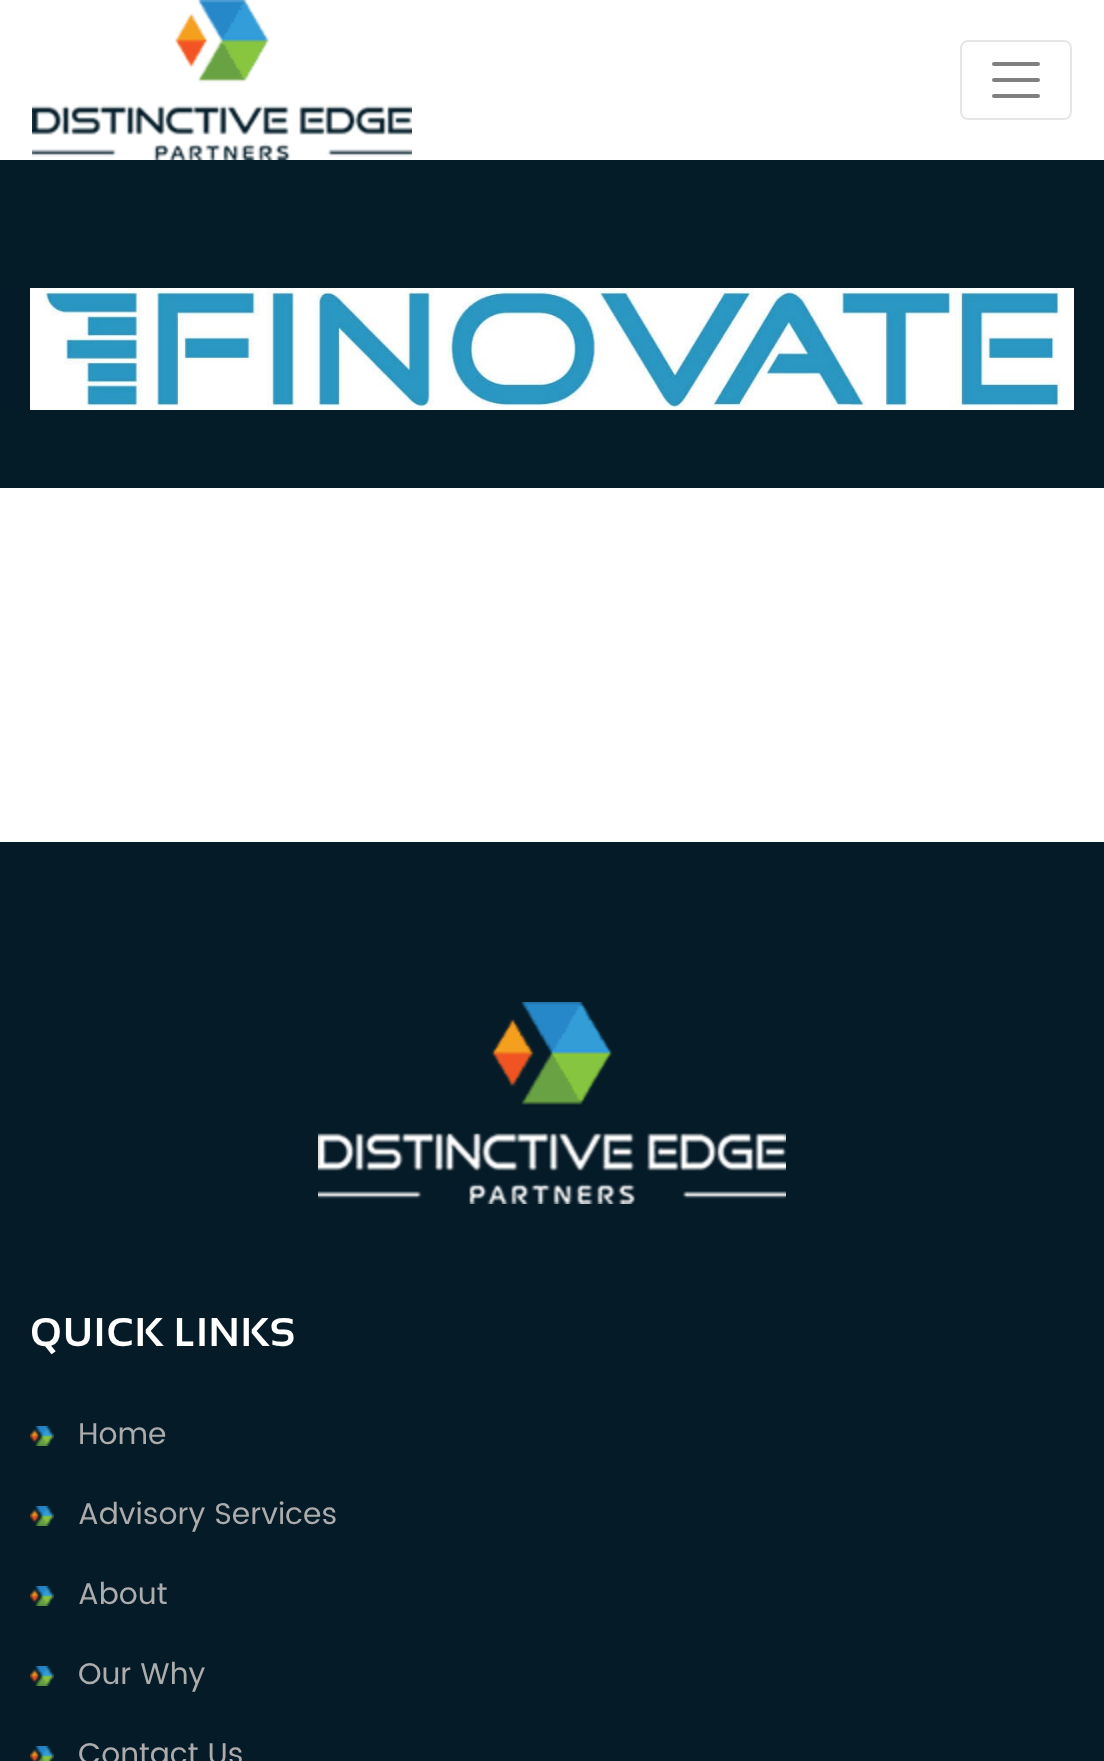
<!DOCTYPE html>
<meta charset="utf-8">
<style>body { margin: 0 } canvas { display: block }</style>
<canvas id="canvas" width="1104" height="1761"></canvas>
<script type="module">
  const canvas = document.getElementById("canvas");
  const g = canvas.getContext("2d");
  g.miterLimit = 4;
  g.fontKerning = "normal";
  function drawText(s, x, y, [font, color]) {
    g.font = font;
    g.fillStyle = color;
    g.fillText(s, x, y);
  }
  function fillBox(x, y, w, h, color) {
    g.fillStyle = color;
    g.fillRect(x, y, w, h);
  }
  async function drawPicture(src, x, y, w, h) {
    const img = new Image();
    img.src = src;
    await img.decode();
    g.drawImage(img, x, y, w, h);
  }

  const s1 = ["bold 40px Sansation", "#FFFFFF"];
  const s2 = ["30px Poppins", "#ACACAC"];

  fillBox(0, 0, 1104, 1761, "#FFFFFF");
  await drawPicture("pic1.png", 32, 0, 380, 160);
  g.beginPath();
  g.roundRect(961, 41, 110, 78, 7);
  g.strokeStyle = "#E6E6E6";
  g.lineWidth = 2;
  g.stroke();
  g.beginPath();
  g.moveTo(994, 64);
  g.lineTo(1038, 64);
  g.moveTo(994, 80);
  g.lineTo(1038, 80);
  g.moveTo(994, 96);
  g.lineTo(1038, 96);
  g.strokeStyle = "#808080";
  g.lineWidth = 4;
  g.lineCap = "round";
  g.stroke();
  fillBox(0, 160, 1104, 328, "#031C28");
  await drawPicture("pic2.png", 30, 288, 1044, 122);
  fillBox(0, 842, 1104, 919, "#051B28");
  await drawPicture("pic3.png", 318, 1002, 468, 202);
  g.letterSpacing = "1.25px";
  drawText("QUICK LINKS", 30, 1346, s1);
  await drawPicture("pic4.png", 30, 1426, 24, 20);
  g.letterSpacing = "0px";
  drawText("Home", 78, 1444, s2);
  await drawPicture("pic4.png", 30, 1506, 24, 20);
  drawText("Advisory Services", 78, 1524, s2);
  await drawPicture("pic4.png", 30, 1586, 24, 20);
  drawText("About", 78, 1604, s2);
  await drawPicture("pic4.png", 30, 1666, 24, 20);
  drawText("Our Why", 78, 1684, s2);
  await drawPicture("pic5.png", 30, 1746, 24, 15);
  drawText("Contact Us", 78, 1764, s2);
</script>
